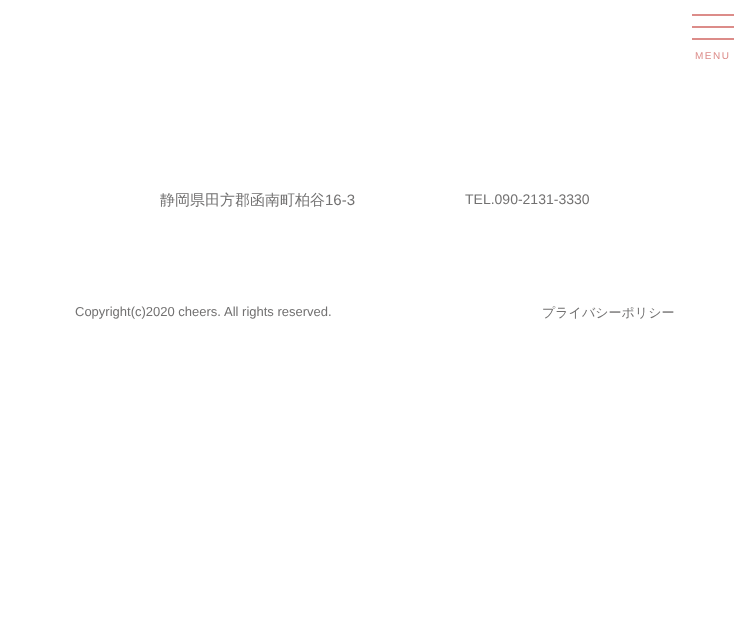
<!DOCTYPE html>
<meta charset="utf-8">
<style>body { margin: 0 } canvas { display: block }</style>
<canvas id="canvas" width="749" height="621"></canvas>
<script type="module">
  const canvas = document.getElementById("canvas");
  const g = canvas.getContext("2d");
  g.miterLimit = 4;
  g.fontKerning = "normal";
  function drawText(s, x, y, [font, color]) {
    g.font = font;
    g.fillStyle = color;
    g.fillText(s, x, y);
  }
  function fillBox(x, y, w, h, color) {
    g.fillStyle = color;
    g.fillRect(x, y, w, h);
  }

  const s1 = ["10px Liberation Sans", "#DC8C89"];
  const s2 = ["500 15px WenQuanYi Zen Hei", "#727171"];
  const s3 = ["15px Liberation Sans", "#727171"];
  const s4 = ["14px Liberation Sans", "#727171"];
  const s5 = ["13px Liberation Sans", "#727171"];
  const s6 = ["500 13px WenQuanYi Zen Hei", "#727171"];

  fillBox(0, 0, 749, 621, "#FFFFFF");
  fillBox(692, 14, 42, 2, "#DC8C89");
  fillBox(692, 26, 42, 2, "#DC8C89");
  fillBox(692, 38, 42, 2, "#DC8C89");
  g.letterSpacing = "1.5px";
  drawText("MENU", 695, 59, s1);
  g.letterSpacing = "0px";
  drawText("静岡県田方郡函南町柏谷", 160, 205, s2);
  drawText("16-3", 325, 205, s3);
  drawText("TEL.090-2131-3330", 465, 204, s4);
  drawText("Copyright(c)2020 cheers.", 75, 316, s5);
  drawText("All rights reserved.", 224, 316, s5);
  drawText("プライバシーポリシー", 542, 317, s6);
</script>
